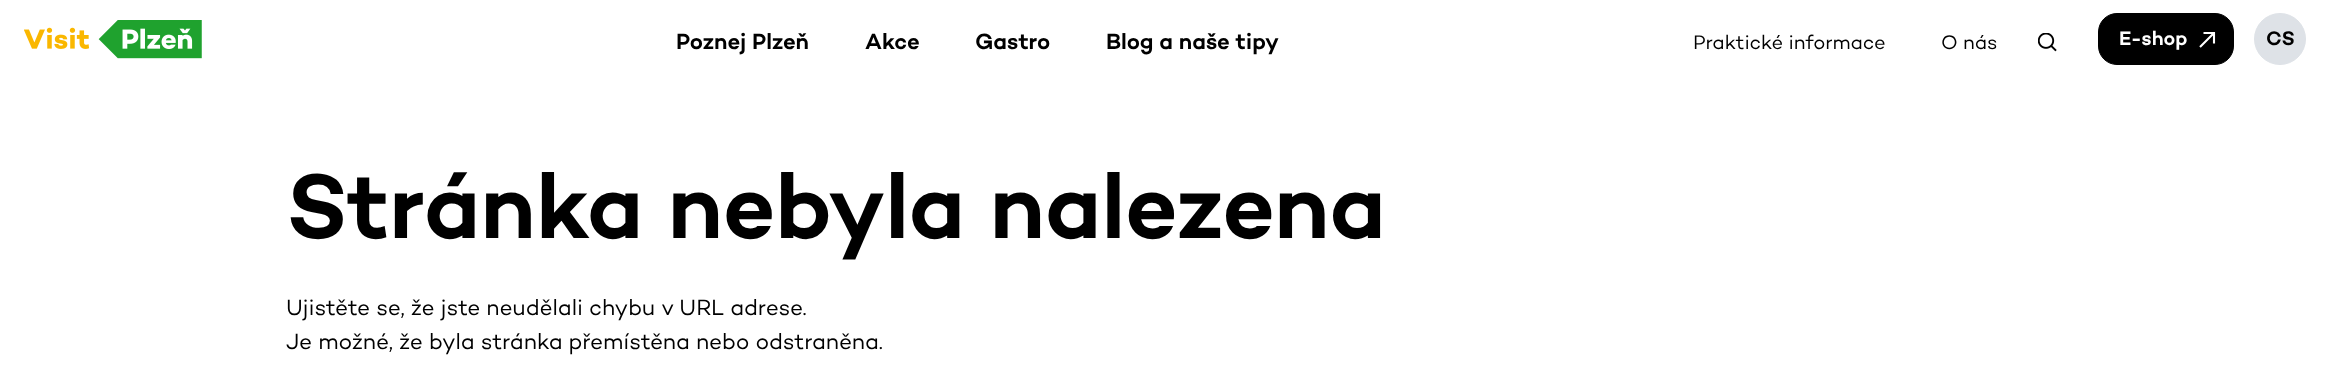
<!DOCTYPE html>
<meta charset="utf-8">
<style>body { margin: 0 } canvas { display: block }</style>
<canvas id="canvas" width="2330" height="368"></canvas>
<script type="module">
  const canvas = document.getElementById("canvas");
  const g = canvas.getContext("2d");
  g.miterLimit = 4;
  g.fontKerning = "normal";
  function drawText(s, x, y, [font, color]) {
    g.font = font;
    g.fillStyle = color;
    g.fillText(s, x, y);
  }
  function fillBox(x, y, w, h, color) {
    g.fillStyle = color;
    g.fillRect(x, y, w, h);
  }
  async function drawPicture(src, x, y, w, h) {
    const img = new Image();
    img.src = src;
    await img.decode();
    g.drawImage(img, x, y, w, h);
  }

  const s1 = ["600 22.5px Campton", "#000000"];
  const s2 = ["20px Campton", "#000000"];
  const s3 = ["600 20px Campton", "#FFFFFF"];
  const s4 = ["600 20px Campton", "#000000"];
  const s5 = ["600 93.1px Campton", "#000000"];
  const s6 = ["22.5px Campton", "#000000"];

  fillBox(0, 0, 2330, 368, "#FFFFFF");
  await drawPicture("pic1.png", 24, 20, 178, 39);
  drawText("Poznej Plzeň", 676, 49, s1);
  drawText("Akce", 865, 49, s1);
  drawText("Gastro", 975, 49, s1);
  drawText("Blog a naše tipy", 1106, 49, s1);
  drawText("Praktické informace", 1693, 49, s2);
  drawText("O nás", 1941, 49, s2);
  await drawPicture("pic2.png", 2038, 33, 19, 19);
  g.beginPath();
  g.roundRect(2098.5, 13.5, 135, 51, 18.5);
  g.fill();
  g.strokeStyle = "#000000";
  g.stroke();
  drawText("E-shop", 2119, 45, s3);
  g.beginPath();
  g.moveTo(2200, 47);
  g.lineTo(2214, 33);
  g.moveTo(2203.5, 33);
  g.lineTo(2214, 33);
  g.lineTo(2214, 43.5);
  g.strokeStyle = "#FFFFFF";
  g.lineWidth = 2.1;
  g.stroke();
  g.fillStyle = "#DEE2E7";
  g.beginPath();
  g.arc(2280, 39, 25.5, 0, Math.PI * 2);
  g.fill();
  g.strokeStyle = "#DEE2E7";
  g.lineWidth = 1;
  g.stroke();
  drawText("CS", 2266, 45, s4);
  drawText("Stránka nebyla nalezena", 286, 238, s5);
  drawText("Ujistěte se, že jste neudělali chybu v URL adrese.", 286, 315, s6);
  drawText("Je možné, že byla stránka přemístěna nebo odstraněna.", 286, 349, s6);
</script>
